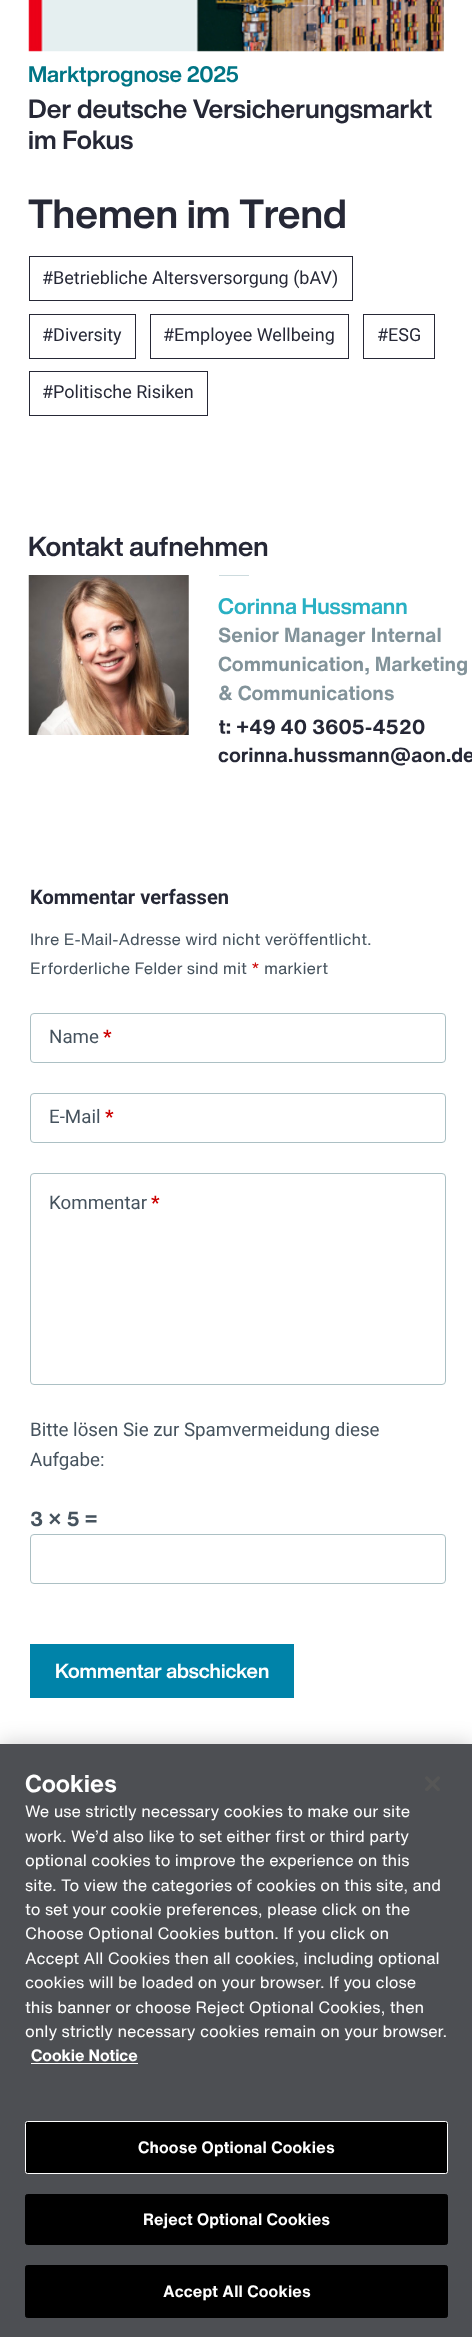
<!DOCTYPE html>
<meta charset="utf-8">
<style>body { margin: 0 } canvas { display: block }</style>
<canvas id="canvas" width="472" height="2337"></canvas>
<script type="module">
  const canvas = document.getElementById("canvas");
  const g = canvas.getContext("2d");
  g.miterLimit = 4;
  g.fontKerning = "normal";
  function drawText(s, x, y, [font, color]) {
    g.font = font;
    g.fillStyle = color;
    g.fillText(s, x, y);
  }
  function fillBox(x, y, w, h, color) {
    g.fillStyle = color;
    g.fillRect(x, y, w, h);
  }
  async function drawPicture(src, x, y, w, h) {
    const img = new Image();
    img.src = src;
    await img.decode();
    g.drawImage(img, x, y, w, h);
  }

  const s1 = ["bold 22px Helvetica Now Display", "#007585"];
  const s2 = ["bold 26px Helvetica Now Display", "#262836"];
  const s3 = ["bold 40px Helvetica Now Display", "#262836"];
  const s4 = ["18px Roboto", "#262836"];
  const s5 = ["bold 27px Helvetica Now Display", "#262836"];
  const s6 = ["bold 22px Helvetica Now Display", "#29B0C3"];
  const s7 = ["bold 20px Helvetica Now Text", "#82939A"];
  const s8 = ["bold 20px Helvetica Now Text", "#262836"];
  const s9 = ["bold 20px Roboto", "#262836"];
  const s10 = ["16.25px Helvetica Now Text", "#46535E"];
  const s11 = ["16.25px Helvetica Now Text", "#CC0000"];
  const s12 = ["18.75px Roboto", "#46535E"];
  const s13 = ["bold 18.75px Roboto", "#CC0000"];
  const s14 = ["bold 20px Helvetica Now Text", "#46535E"];
  const s15 = ["bold 20px Helvetica Now Display", "#FFFFFF"];
  const s16 = ["bold 24px Helvetica Now Text", "#FFFFFF"];
  const s17 = ["16.25px Helvetica Now Text", "#FFFFFF"];
  const s18 = ["bold 16.25px Helvetica Now Text", "#FFFFFF"];

  fillBox(0, 0, 472, 2337, "#FFFFFF");
  await drawPicture("pic1.png", 28, 0, 416, 52);
  drawText("Marktprognose 2025", 28, 82, s1);
  drawText("Der deutsche Versicherungsmarkt", 28, 118, s2);
  drawText("im Fokus", 28, 149, s2);
  drawText("Themen im Trend", 28, 228, s3);
  g.strokeStyle = "#262836";
  g.strokeRect(29.5, 256.5, 323, 44);
  drawText("#Betriebliche Altersversorgung (bAV)", 42, 284, s4);
  g.strokeRect(29.5, 314.5, 106, 44);
  drawText("#Diversity", 42, 341, s4);
  g.strokeRect(150.5, 314.5, 198, 44);
  drawText("#Employee Wellbeing", 163, 341, s4);
  g.strokeRect(363.5, 314.5, 71, 44);
  drawText("#ESG", 377, 341, s4);
  g.strokeRect(29.5, 371.5, 178, 44);
  drawText("#Politische Risiken", 42, 398, s4);
  drawText("Kontakt aufnehmen", 28, 556, s5);
  await drawPicture("pic2.png", 28, 575, 161, 160);
  fillBox(219, 575, 30, 1, "#CDDBDE");
  drawText("Corinna Hussmann", 218, 614, s6);
  drawText("Senior Manager Internal", 218, 642, s7);
  drawText("Communication, Marketing", 218, 671, s7);
  drawText("& Communications", 218, 700, s7);
  await drawPicture("pic3.png", 219, 720, 12, 14);
  drawText("+49 40 3605-4520", 236, 734, s8);
  drawText("corinna.hussmann@aon.de", 218, 762, s8);
  drawText("Kommentar verfassen", 30, 904, s9);
  drawText("Ihre E-Mail-Adresse wird nicht veröffentlicht.", 30, 945, s10);
  drawText("Erforderliche Felder sind mit", 30, 974, s10);
  drawText("*", 251, 974, s11);
  drawText("markiert", 264, 974, s10);
  g.beginPath();
  g.roundRect(30.5, 1013.5, 415, 49, 3.5);
  g.strokeStyle = "#ACC0C4";
  g.stroke();
  drawText("Name", 49, 1043, s12);
  drawText("*", 103, 1043, s13);
  g.beginPath();
  g.roundRect(30.5, 1093.5, 415, 49, 3.5);
  g.stroke();
  drawText("E-Mail", 49, 1123, s12);
  drawText("*", 105, 1123, s13);
  g.beginPath();
  g.roundRect(30.5, 1173.5, 415, 211, 3.5);
  g.stroke();
  drawText("Kommentar", 49, 1209, s12);
  drawText("*", 151, 1209, s13);
  drawText("Bitte lösen Sie zur Spamvermeidung diese", 30, 1436, s12);
  drawText("Aufgabe:", 30, 1466, s12);
  drawText("3 × 5 =", 30, 1526, s14);
  g.beginPath();
  g.roundRect(30.5, 1534.5, 415, 49, 3.5);
  g.stroke();
  fillBox(30, 1644, 264, 54, "#0083A9");
  drawText("Kommentar abschicken", 55, 1678, s15);
  g.fillStyle = "rgba(0, 0, 0, 0.2)";
  g.filter = "blur(11px)";
  g.beginPath();
  g.rect(0, 1744, 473, 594);
  g.fill();
  g.filter = "none";
  fillBox(0, 1744, 472, 593, "#4D4F53");
  drawText("Cookies", 25, 1792, s16);
  drawText("We use strictly necessary cookies to make our site", 25, 1817, s17);
  drawText("work. We’d also like to set either first or third party", 25, 1842, s17);
  drawText("optional cookies to improve the experience on this", 25, 1866, s17);
  drawText("site. To view the categories of cookies on this site, and", 25, 1891, s17);
  drawText("to set your cookie preferences, please click on the", 25, 1915, s17);
  drawText("Choose Optional Cookies button. If you click on", 25, 1939, s17);
  drawText("Accept All Cookies then all cookies, including optional", 25, 1964, s17);
  drawText("cookies will be loaded on your browser. If you close", 25, 1988, s17);
  drawText("this banner or choose Reject Optional Cookies, then", 25, 2013, s17);
  drawText("only strictly necessary cookies remain on your browser.", 25, 2037, s17);
  drawText("Cookie Notice", 31, 2061, s18);
  fillBox(31, 2063, 107, 1, "#FFFFFF");
  g.fillStyle = "#000000";
  g.beginPath();
  g.roundRect(25.5, 2121.5, 422, 52, 2);
  g.fill();
  g.strokeStyle = "#FFFFFF";
  g.stroke();
  g.letterSpacing = "0.2px";
  drawText("Choose Optional Cookies", 138, 2153, s18);
  g.fillStyle = "#000000";
  g.beginPath();
  g.roundRect(25.5, 2194.5, 422, 50, 2);
  g.fill();
  g.strokeStyle = "#000000";
  g.stroke();
  drawText("Reject Optional Cookies", 143, 2225, s18);
  g.fillStyle = "#000000";
  g.beginPath();
  g.roundRect(25.5, 2265.5, 422, 52, 2);
  g.fill();
  g.stroke();
  drawText("Accept All Cookies", 163, 2297, s18);
  await drawPicture("pic4.png", 425, 1776, 15, 15);
</script>
